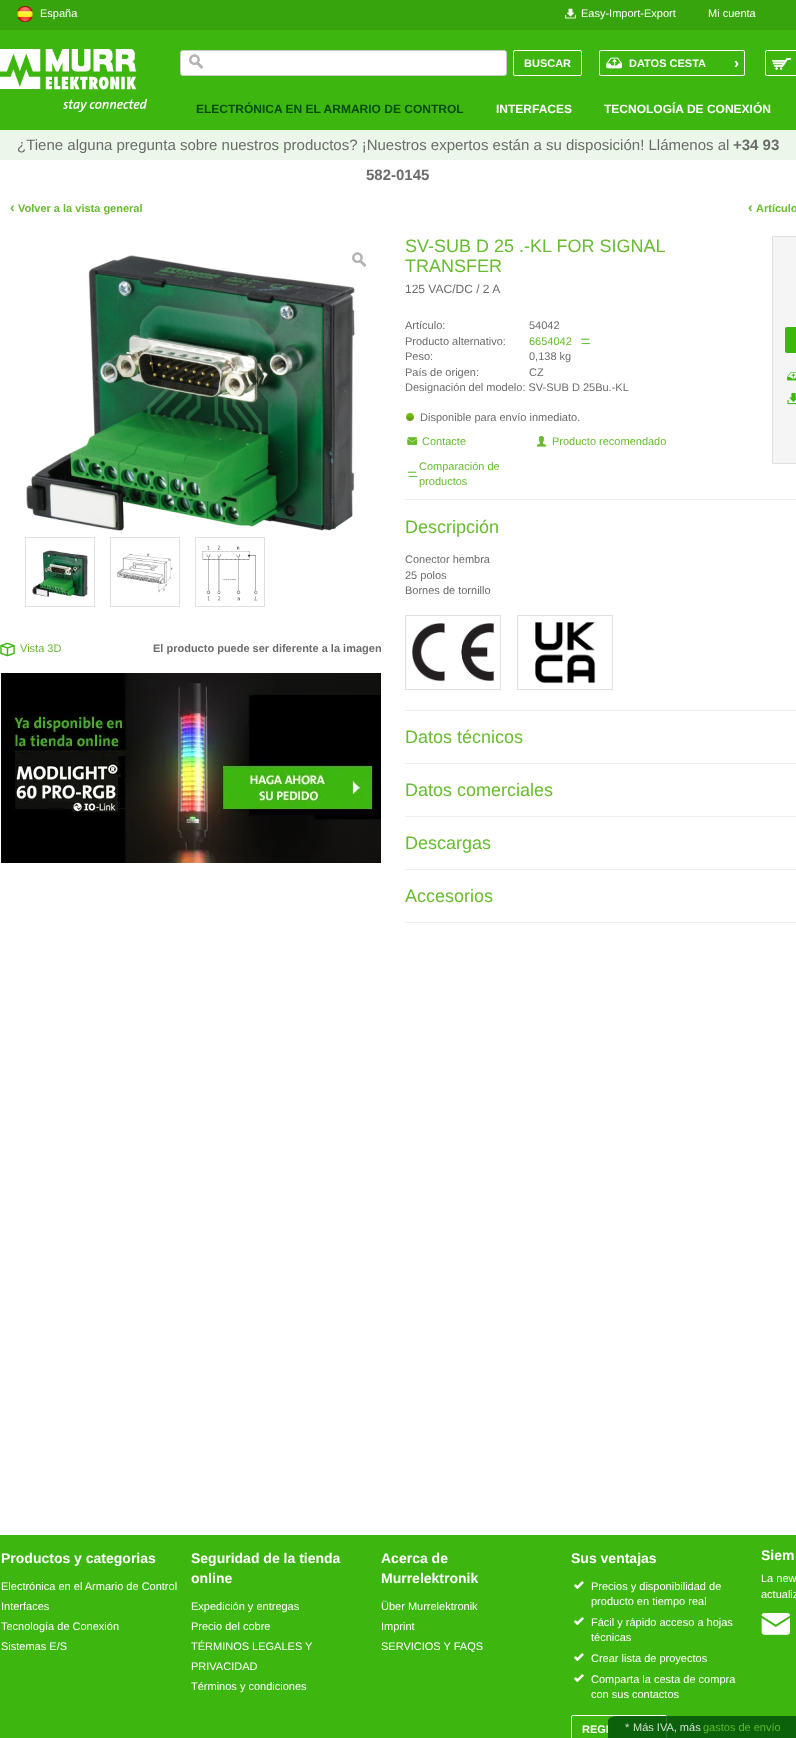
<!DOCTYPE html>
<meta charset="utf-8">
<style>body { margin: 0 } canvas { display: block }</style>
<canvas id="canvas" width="796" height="1738"></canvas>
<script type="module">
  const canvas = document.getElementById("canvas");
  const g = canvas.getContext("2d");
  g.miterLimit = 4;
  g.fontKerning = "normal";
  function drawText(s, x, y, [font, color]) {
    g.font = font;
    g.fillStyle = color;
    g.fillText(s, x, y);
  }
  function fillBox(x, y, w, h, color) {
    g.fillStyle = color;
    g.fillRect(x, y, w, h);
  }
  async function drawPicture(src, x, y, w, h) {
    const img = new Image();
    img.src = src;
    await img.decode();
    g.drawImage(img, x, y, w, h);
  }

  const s1 = ["11px Liberation Sans", "#FFFFFF"];
  const s2 = ["bold 11px Liberation Sans", "#FFFFFF"];
  const s3 = ["bold 15px Liberation Sans", "#FFFFFF"];
  const s4 = ["bold 12px Liberation Sans", "#004D0B"];
  const s5 = ["bold 12px Liberation Sans", "#FFFFFF"];
  const s6 = ["15px Liberation Sans", "#6C6C6C"];
  const s7 = ["bold 15px Liberation Sans", "#6C6C6C"];
  const s8 = ["bold 14px Liberation Sans", "#68BC2F"];
  const s9 = ["bold 11px Liberation Sans", "#68BC2F"];
  const s10 = ["11px Liberation Sans", "#68BC2F"];
  const s11 = ["bold 11px Liberation Sans", "#6C6C6C"];
  const s12 = ["18px Liberation Sans", "#68BC2F"];
  const s13 = ["12px Liberation Sans", "#6C6C6C"];
  const s14 = ["11px Liberation Sans", "#6C6C6C"];
  const s15 = ["bold 14px Liberation Sans", "#FFFFFF"];
  const s16 = ["11px Liberation Sans", "#D1E0D1"];
  const s17 = ["11px Liberation Sans", "#5FBB29"];

  fillBox(0, 0, 796, 1738, "#FFFFFF");
  fillBox(0, 0, 796, 30, "#37A40D");
  await drawPicture("pic1.png", 17, 6, 16, 16);
  drawText("España", 40, 17, s1);
  await drawPicture("pic2.png", 565, 8, 11, 11);
  drawText("Easy-Import-Export", 581, 17, s1);
  drawText("Mi cuenta", 708, 17, s1);
  fillBox(0, 30, 796, 100, "#3DB60F");
  await drawPicture("pic3.png", 0, 49, 147, 63);
  g.fillStyle = "#FFFFFF";
  g.beginPath();
  g.roundRect(180.5, 50.5, 326, 25, 2.5);
  g.fill();
  g.strokeStyle = "#CCCCCC";
  g.stroke();
  await drawPicture("pic4.png", 189, 54, 14, 15);
  g.beginPath();
  g.roundRect(513.5, 50.5, 68, 25, 1.5);
  g.strokeStyle = "#FFFFFF";
  g.stroke();
  drawText("BUSCAR", 524, 67, s2);
  fillBox(599, 50, 146, 26, "#68BB2E");
  g.fillStyle = "#3DB60F";
  g.beginPath();
  g.roundRect(599.5, 50.5, 145, 25, 1.5);
  g.fill();
  g.stroke();
  await drawPicture("pic5.png", 606, 57, 16, 12);
  drawText("DATOS CESTA", 629, 67, s2);
  drawText("›", 734, 68, s3);
  fillBox(765, 50, 2, 26, "#68BB2E");
  g.fillStyle = "#3DB60F";
  g.beginPath();
  g.roundRect(765.5, 50.5, 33, 25, 1.5);
  g.fill();
  g.stroke();
  await drawPicture("pic6.png", 772, 58, 19, 12);
  drawText("ELECTRÓNICA EN EL ARMARIO DE CONTROL", 196, 113, s4);
  drawText("INTERFACES", 496, 113, s5);
  drawText("TECNOLOGÍA DE CONEXIÓN", 604, 113, s5);
  fillBox(0, 130, 796, 30, "#EBF7E8");
  drawText("¿Tiene alguna pregunta sobre nuestros productos? ¡Nuestros expertos están a su disposición! Llámenos al", 17, 150, s6);
  drawText("+34 93", 733, 150, s7);
  drawText("582-0145", 366, 180, s7);
  drawText("‹", 10, 212, s8);
  drawText("Volver a la vista general", 18, 212, s9);
  drawText("‹", 748, 212, s8);
  drawText("Artículo", 756, 212, s9);
  await drawPicture("pic7.png", 26, 255, 329, 276);
  await drawPicture("pic4.png", 352, 252, 14, 15);
  await drawPicture("pic8.png", 0, 642, 15, 15);
  drawText("Vista 3D", 20, 652, s10);
  drawText("El producto puede ser diferente a la imagen", 153, 652, s11);
  await drawPicture("pic9.png", 1, 673, 380, 190);
  drawText("SV-SUB D 25 .-KL FOR SIGNAL", 405, 252, s12);
  drawText("TRANSFER", 405, 272, s12);
  drawText("125 VAC/DC / 2 A", 405, 293, s13);
  drawText("Artículo:", 405, 329, s14);
  drawText("54042", 529, 329, s14);
  drawText("Producto alternativo:", 405, 345, s14);
  drawText("6654042", 529, 345, s10);
  await drawPicture("pic10.png", 580, 338, 11, 7);
  drawText("Peso:", 405, 360, s14);
  drawText("0,138 kg", 529, 360, s14);
  drawText("País de origen:", 405, 376, s14);
  drawText("CZ", 529, 376, s14);
  drawText("Designación del modelo: SV-SUB D 25Bu.-KL", 405, 391, s14);
  await drawPicture("pic11.png", 406, 413, 8, 8);
  drawText("Disponible para envío inmediato.", 420, 421, s14);
  await drawPicture("pic12.png", 407, 437, 11, 8);
  drawText("Contacte", 422, 445, s10);
  await drawPicture("pic13.png", 537, 436, 9, 11);
  drawText("Producto recomendado", 552, 445, s10);
  drawText("Comparación de", 419, 470, s10);
  await drawPicture("pic10.png", 407, 471, 11, 7);
  drawText("productos", 419, 485, s10);
  g.fillStyle = "#F5F5F5";
  g.beginPath();
  g.rect(772.5, 236.5, 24, 227);
  g.fill();
  g.strokeStyle = "#E0E0E0";
  g.stroke();
  g.fillStyle = "#3DB60F";
  g.beginPath();
  g.roundRect(785.5, 327.5, 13, 25, 1.5);
  g.fill();
  g.strokeStyle = "#3DB60F";
  g.stroke();
  await drawPicture("pic14.png", 787, 372, 9, 9);
  await drawPicture("pic15.png", 787, 393, 9, 12);
  fillBox(405, 499, 391, 1, "#EFEFEF");
  fillBox(405, 710, 391, 1, "#EFEFEF");
  drawText("Descripción", 405, 533, s12);
  drawText("Conector hembra", 405, 563, s14);
  drawText("25 polos", 405, 579, s14);
  drawText("Bornes de tornillo", 405, 594, s14);
  g.strokeStyle = "#E0E0E0";
  g.strokeRect(405.5, 615.5, 95, 74);
  await drawPicture("pic16.png", 412, 623, 83, 59);
  g.strokeRect(517.5, 615.5, 95, 74);
  await drawPicture("pic17.png", 535, 622, 61, 62);
  fillBox(405, 763, 391, 1, "#EFEFEF");
  drawText("Datos técnicos", 405, 743, s12);
  fillBox(405, 816, 391, 1, "#EFEFEF");
  drawText("Datos comerciales", 405, 796, s12);
  fillBox(405, 869, 391, 1, "#EFEFEF");
  drawText("Descargas", 405, 849, s12);
  fillBox(405, 922, 391, 1, "#EFEFEF");
  drawText("Accesorios", 405, 902, s12);
  g.strokeRect(25.5, 537.5, 69, 69);
  await drawPicture("pic18.png", 32, 550, 56, 47);
  g.strokeRect(110.5, 537.5, 69, 69);
  await drawPicture("pic19.png", 117, 553, 56, 40);
  g.strokeRect(195.5, 537.5, 69, 69);
  await drawPicture("pic20.png", 202, 545, 56, 56);
  fillBox(0, 1535, 796, 203, "#3DB60F");
  drawText("Productos y categorias", 1, 1563, s15);
  drawText("Electrónica en el Armario de Control", 1, 1590, s1);
  drawText("Interfaces", 1, 1610, s1);
  drawText("Tecnología de Conexión", 1, 1630, s1);
  drawText("Sistemas E/S", 1, 1650, s1);
  drawText("Seguridad de la tienda", 191, 1563, s15);
  drawText("online", 191, 1583, s15);
  drawText("Expedición y entregas", 191, 1610, s1);
  drawText("Precio del cobre", 191, 1630, s1);
  drawText("TÉRMINOS LEGALES Y", 191, 1650, s1);
  drawText("PRIVACIDAD", 191, 1670, s1);
  drawText("Términos y condiciones", 191, 1690, s1);
  drawText("Acerca de", 381, 1563, s15);
  drawText("Murrelektronik", 381, 1583, s15);
  drawText("Über Murrelektronik", 381, 1610, s1);
  drawText("Imprint", 381, 1630, s1);
  drawText("SERVICIOS Y FAQS", 381, 1650, s1);
  drawText("Sus ventajas", 571, 1563, s15);
  await drawPicture("pic21.png", 574, 1581, 10, 8);
  drawText("Precios y disponibilidad de", 591, 1590, s1);
  drawText("producto en tiempo real", 591, 1605, s1);
  await drawPicture("pic21.png", 574, 1617, 10, 8);
  drawText("Fácil y rápido acceso a hojas", 591, 1626, s1);
  drawText("técnicas", 591, 1641, s1);
  await drawPicture("pic21.png", 574, 1653, 10, 8);
  drawText("Crear lista de proyectos", 591, 1662, s1);
  await drawPicture("pic21.png", 574, 1674, 10, 8);
  drawText("Comparta la cesta de compra", 591, 1683, s1);
  drawText("con sus contactos", 591, 1698, s1);
  g.beginPath();
  g.roundRect(571.5, 1715.5, 95, 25, 1.5);
  g.strokeStyle = "#FFFFFF";
  g.stroke();
  drawText("REGI", 582, 1733, s2);
  drawText("Siem", 761, 1560, s15);
  drawText("La new", 761, 1582, s1);
  drawText("actualiz", 761, 1598, s1);
  await drawPicture("pic22.png", 761, 1613, 29, 22);
  g.fillStyle = "rgba(0, 76, 10, 0.8)";
  g.beginPath();
  g.moveTo(618, 1716);
  g.lineTo(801, 1716);
  g.lineTo(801, 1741);
  g.lineTo(608, 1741);
  g.lineTo(608, 1721);
  g.bezierCurveTo(608, 1718, 612, 1716, 618, 1716);
  g.closePath();
  g.fill();
  drawText("*", 625, 1731, s16);
  drawText("Más IVA, más", 633, 1731, s16);
  drawText("gastos de envío", 703, 1731, s17);
</script>
